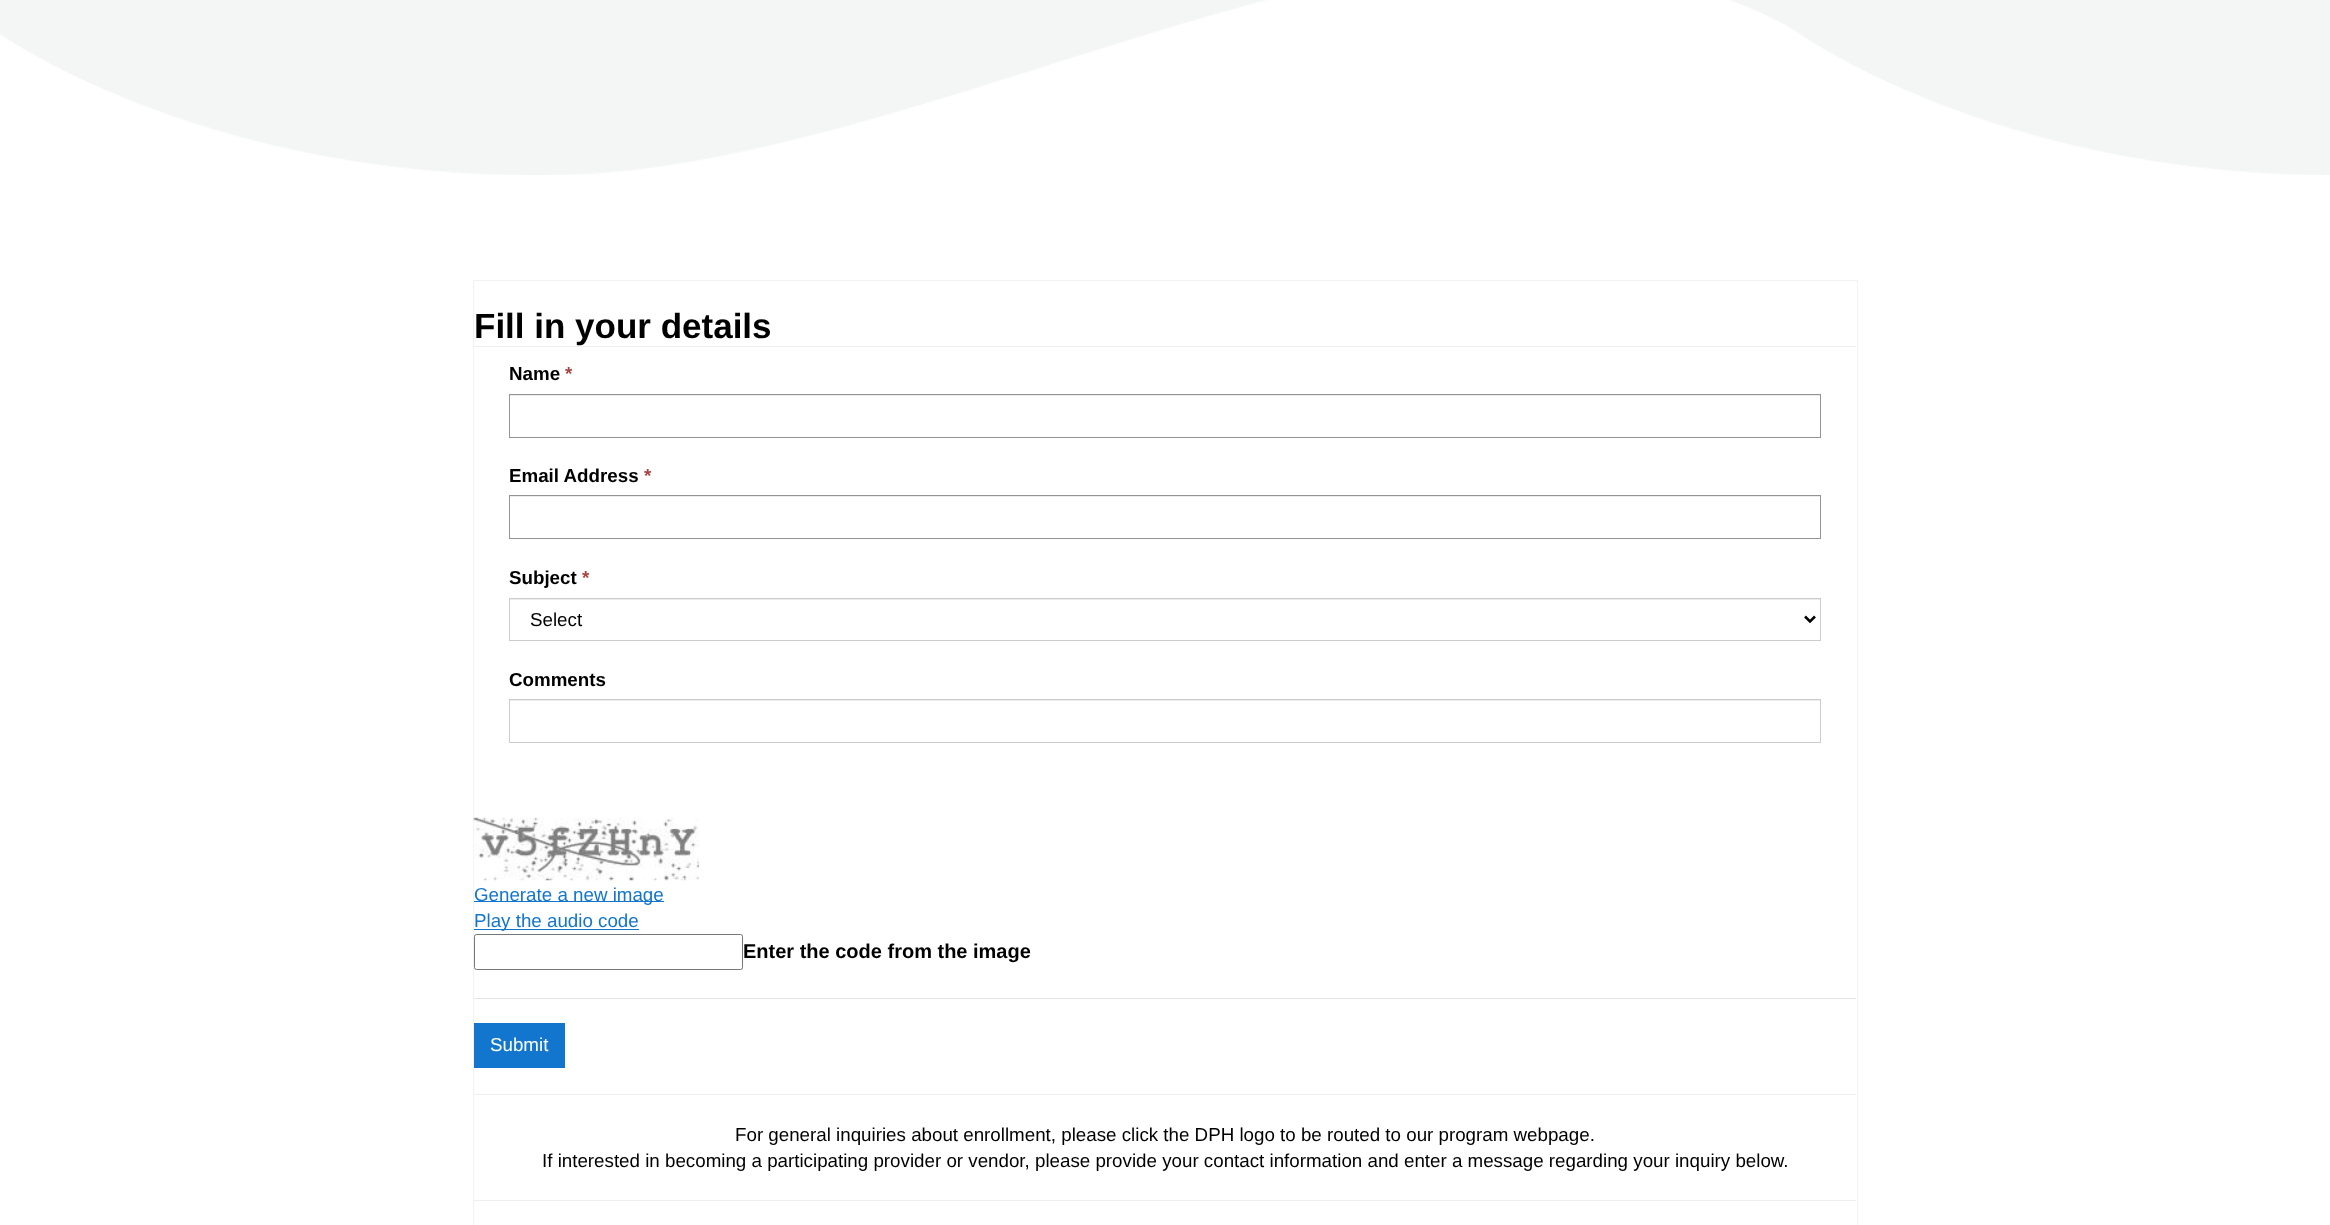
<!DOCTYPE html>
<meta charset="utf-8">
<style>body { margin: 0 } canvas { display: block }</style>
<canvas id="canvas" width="2330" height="1225"></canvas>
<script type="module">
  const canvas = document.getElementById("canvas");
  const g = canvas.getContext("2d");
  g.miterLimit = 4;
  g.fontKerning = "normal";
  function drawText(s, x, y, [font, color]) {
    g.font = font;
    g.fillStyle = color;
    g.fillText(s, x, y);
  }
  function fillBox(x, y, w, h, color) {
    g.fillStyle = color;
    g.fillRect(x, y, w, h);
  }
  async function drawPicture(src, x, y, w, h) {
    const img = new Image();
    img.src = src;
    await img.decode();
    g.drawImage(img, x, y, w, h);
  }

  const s1 = ["bold 35px Liberation Sans", "#000000"];
  const s2 = ["bold 18.75px Liberation Sans", "#000000"];
  const s3 = ["bold 18.75px Liberation Sans", "#A94442"];
  const s4 = ["18.75px Liberation Sans", "#000000"];
  const s5 = ["18.75px Liberation Sans", "#1276CE"];
  const s6 = ["bold 20px Liberation Sans", "#000000"];
  const s7 = ["18.75px Liberation Sans", "#FFFFFF"];

  fillBox(0, 0, 2330, 1225, "#FFFFFF");
  await drawPicture("pic1.png", 0, 0, 2330, 175);
  g.strokeStyle = "#F2F2F2";
  g.strokeRect(473.5, 280.5, 1384, 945);
  fillBox(474, 346, 1382, 1, "#EEEEEE");
  drawText("Fill in your details", 474, 338, s1);
  drawText("Name", 509, 380, s2);
  drawText("*", 565, 380, s3);
  fillBox(510, 395, 1310, 1, "#ECECEC");
  g.strokeStyle = "#949494";
  g.strokeRect(509.5, 394.5, 1311, 43);
  drawText("Email Address", 509, 482, s2);
  drawText("*", 644, 482, s3);
  fillBox(510, 496, 1310, 1, "#ECECEC");
  g.strokeRect(509.5, 495.5, 1311, 43);
  drawText("Subject", 509, 584, s2);
  drawText("*", 582, 584, s3);
  fillBox(510, 599, 1310, 1, "#ECECEC");
  g.strokeStyle = "#CCCCCC";
  g.strokeRect(509.5, 598.5, 1311, 42);
  g.beginPath();
  g.moveTo(1805, 616.5);
  g.lineTo(1810, 621.5);
  g.lineTo(1815, 616.5);
  g.strokeStyle = "#000000";
  g.lineWidth = 2.5;
  g.stroke();
  drawText("Select", 530, 626, s4);
  drawText("Comments", 509, 686, s2);
  fillBox(510, 700, 1310, 1, "#ECECEC");
  g.strokeStyle = "#CCCCCC";
  g.lineWidth = 1;
  g.strokeRect(509.5, 699.5, 1311, 43);
  await drawPicture("pic2.png", 473, 817, 226, 64);
  fillBox(474, 901, 190, 1, "#1276CE");
  drawText("Generate a new image", 474, 901, s5);
  fillBox(474, 929, 165, 1, "#1276CE");
  drawText("Play the audio code", 474, 927, s5);
  g.beginPath();
  g.roundRect(474.5, 934.5, 268, 35, 2);
  g.strokeStyle = "#767676";
  g.stroke();
  drawText("Enter the code from the image", 743, 958, s6);
  fillBox(474, 998, 1382, 1, "#E5E5E5");
  fillBox(474, 1023, 91, 45, "#1276CE");
  drawText("Submit", 490, 1051, s7);
  fillBox(474, 1094, 1382, 1, "#EEEEEE");
  drawText("For general inquiries about enrollment, please click the DPH logo to be routed to our program webpage.", 735, 1141, s4);
  drawText("If interested in becoming a participating provider or vendor, please provide your contact information and enter a message regarding your inquiry below.", 542, 1167, s4);
  fillBox(474, 1200, 1382, 1, "#EEEEEE");
</script>
